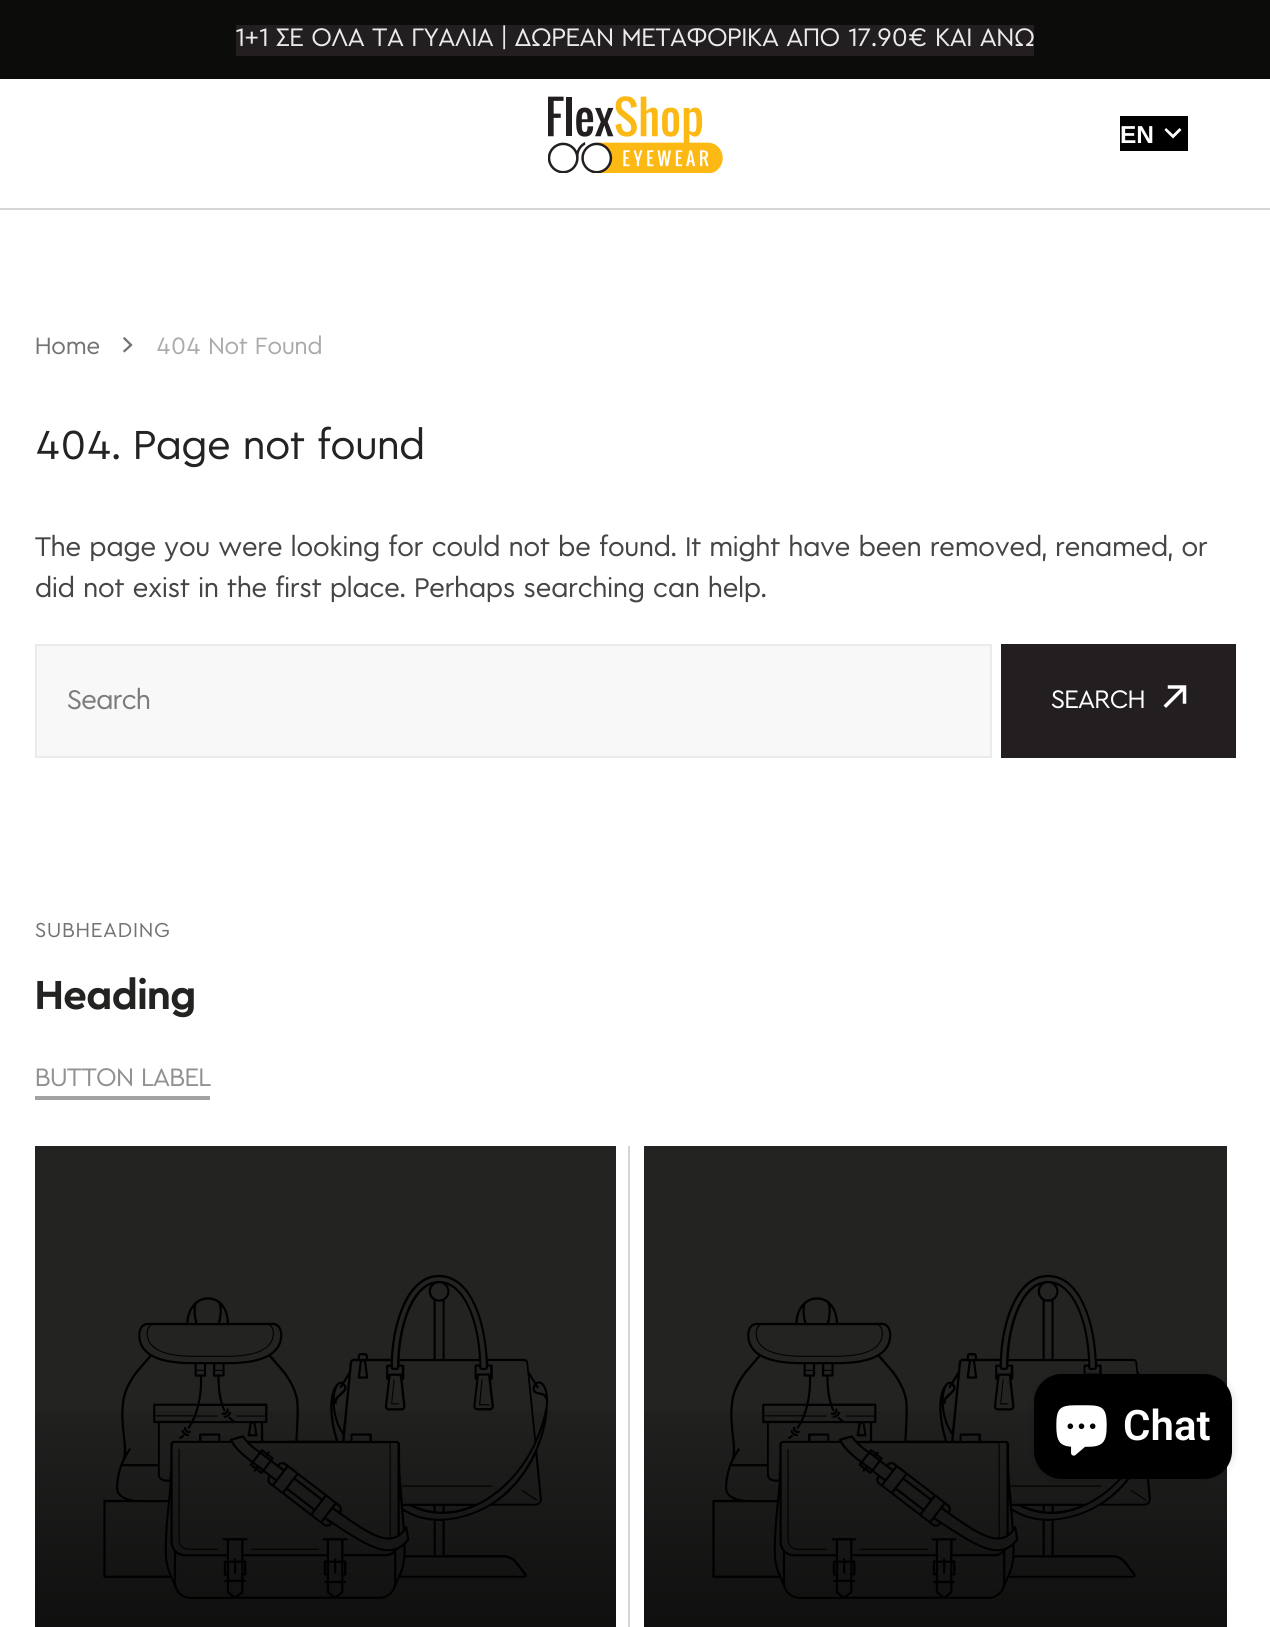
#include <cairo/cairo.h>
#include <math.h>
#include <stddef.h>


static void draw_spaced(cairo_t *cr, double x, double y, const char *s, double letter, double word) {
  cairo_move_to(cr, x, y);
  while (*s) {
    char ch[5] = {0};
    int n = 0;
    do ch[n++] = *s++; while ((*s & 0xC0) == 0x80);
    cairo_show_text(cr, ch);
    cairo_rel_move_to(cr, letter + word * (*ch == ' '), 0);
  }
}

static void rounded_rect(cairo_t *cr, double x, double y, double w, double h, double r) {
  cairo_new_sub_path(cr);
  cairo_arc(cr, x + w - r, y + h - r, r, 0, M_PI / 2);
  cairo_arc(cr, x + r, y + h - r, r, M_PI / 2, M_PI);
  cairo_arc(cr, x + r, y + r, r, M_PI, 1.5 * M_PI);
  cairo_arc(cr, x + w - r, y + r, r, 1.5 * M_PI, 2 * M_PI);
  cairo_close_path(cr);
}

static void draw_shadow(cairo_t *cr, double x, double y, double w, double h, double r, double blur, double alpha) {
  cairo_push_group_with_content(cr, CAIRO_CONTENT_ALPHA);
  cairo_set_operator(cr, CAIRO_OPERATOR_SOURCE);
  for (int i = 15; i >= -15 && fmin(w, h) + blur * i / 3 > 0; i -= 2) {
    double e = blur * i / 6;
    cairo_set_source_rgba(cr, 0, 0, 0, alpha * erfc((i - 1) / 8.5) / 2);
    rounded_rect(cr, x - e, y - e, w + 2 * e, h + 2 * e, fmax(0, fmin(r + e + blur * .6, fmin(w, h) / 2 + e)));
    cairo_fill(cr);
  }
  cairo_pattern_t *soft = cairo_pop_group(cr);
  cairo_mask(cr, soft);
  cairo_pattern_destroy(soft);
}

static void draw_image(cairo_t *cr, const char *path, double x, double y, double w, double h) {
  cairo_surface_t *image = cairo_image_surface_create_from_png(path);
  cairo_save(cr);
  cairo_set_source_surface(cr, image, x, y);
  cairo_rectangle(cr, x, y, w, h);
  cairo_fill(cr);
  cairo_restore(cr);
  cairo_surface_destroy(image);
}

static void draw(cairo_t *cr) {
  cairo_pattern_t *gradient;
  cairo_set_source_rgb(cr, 1, 1, 1);
  cairo_paint(cr);
  cairo_set_source_rgb(cr, 12 / 255.0, 12 / 255.0, 11 / 255.0);
  cairo_rectangle(cr, 0, 0, 1270, 79);
  cairo_fill(cr);
  cairo_set_source_rgb(cr, 35 / 255.0, 31 / 255.0, 32 / 255.0);
  cairo_rectangle(cr, 236, 25, 798, 31);
  cairo_fill(cr);
  cairo_set_source_rgb(cr, 213 / 255.0, 213 / 255.0, 213 / 255.0);
  cairo_rectangle(cr, 0, 208, 1270, 2);
  cairo_fill(cr);
  draw_image(cr, "images/1.png", 548, 96, 175, 77);
  cairo_set_source_rgb(cr, 0, 0, 0);
  cairo_rectangle(cr, 1120, 116, 68, 35);
  cairo_fill(cr);
  cairo_set_source_rgb(cr, 1, 1, 1);
  cairo_new_path(cr);
  cairo_move_to(cr, 1173, 134.5);
  cairo_line_to(cr, 1179.5, 128);
  cairo_line_to(cr, 1181.5, 130);
  cairo_line_to(cr, 1173, 138.5);
  cairo_line_to(cr, 1164.5, 130);
  cairo_line_to(cr, 1166, 128);
  cairo_close_path(cr);
  cairo_fill(cr);
  cairo_new_path(cr);
  cairo_move_to(cr, 124.5, 338.5);
  cairo_line_to(cr, 131, 345);
  cairo_line_to(cr, 124.5, 351);
  cairo_set_source_rgb(cr, 115 / 255.0, 115 / 255.0, 114 / 255.0);
  cairo_set_line_width(cr, 2.3);
  cairo_set_line_cap(cr, CAIRO_LINE_CAP_SQUARE);
  cairo_stroke(cr);
  cairo_set_source_rgb(cr, 248 / 255.0, 248 / 255.0, 248 / 255.0);
  cairo_rectangle(cr, 36, 645, 955, 112);
  cairo_fill_preserve(cr);
  cairo_set_source_rgb(cr, 235 / 255.0, 235 / 255.0, 235 / 255.0);
  cairo_set_line_width(cr, 2);
  cairo_set_line_cap(cr, CAIRO_LINE_CAP_BUTT);
  cairo_stroke(cr);
  cairo_set_source_rgb(cr, 35 / 255.0, 31 / 255.0, 32 / 255.0);
  cairo_rectangle(cr, 1001, 644, 235, 114);
  cairo_fill(cr);
  cairo_new_path(cr);
  cairo_move_to(cr, 1166, 705.5);
  cairo_line_to(cr, 1183, 688.5);
  cairo_move_to(cr, 1169.5, 687);
  cairo_line_to(cr, 1184.5, 687);
  cairo_line_to(cr, 1184.5, 702);
  cairo_set_source_rgb(cr, 1, 1, 1);
  cairo_set_line_width(cr, 3.5);
  cairo_set_line_cap(cr, CAIRO_LINE_CAP_SQUARE);
  cairo_stroke(cr);
  cairo_set_source_rgb(cr, 162 / 255.0, 162 / 255.0, 162 / 255.0);
  cairo_rectangle(cr, 35, 1096, 175, 4);
  cairo_fill(cr);
  cairo_set_source_rgb(cr, 35 / 255.0, 35 / 255.0, 34 / 255.0);
  cairo_rectangle(cr, 35, 1146, 581, 481);
  cairo_fill(cr);
  draw_image(cr, "images/2.png", 103, 1274, 446, 325);
  gradient = cairo_pattern_create_linear(326, 1379, 326, 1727);
  cairo_pattern_add_color_stop_rgba(gradient, 0, 0, 0, 0, 0);
  cairo_pattern_add_color_stop_rgba(gradient, 1, 0, 0, 0, 0.79);
  cairo_set_source(cr, gradient);
  cairo_pattern_destroy(gradient);
  cairo_rectangle(cr, 35, 1411, 581, 216);
  cairo_fill(cr);
  cairo_set_source_rgb(cr, 213 / 255.0, 213 / 255.0, 213 / 255.0);
  cairo_rectangle(cr, 628, 1146, 2, 481);
  cairo_fill(cr);
  cairo_set_source_rgb(cr, 35 / 255.0, 35 / 255.0, 34 / 255.0);
  cairo_rectangle(cr, 644, 1146, 583, 481);
  cairo_fill(cr);
  draw_image(cr, "images/3.png", 712, 1274, 439, 325);
  gradient = cairo_pattern_create_linear(935, 1379, 935, 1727);
  cairo_pattern_add_color_stop_rgba(gradient, 0, 0, 0, 0, 0);
  cairo_pattern_add_color_stop_rgba(gradient, 1, 0, 0, 0, 0.79);
  cairo_set_source(cr, gradient);
  cairo_pattern_destroy(gradient);
  cairo_rectangle(cr, 644, 1411, 583, 216);
  cairo_fill(cr);
  cairo_set_source_rgb(cr, 0, 0, 0);
  draw_shadow(cr, 1034, 1374, 198, 105, 28, 4.5, 0.15);
  cairo_set_source_rgb(cr, 0, 0, 0);
  rounded_rect(cr, 1034, 1374, 198, 105, 28);
  cairo_fill(cr);
  draw_image(cr, "images/4.png", 1056, 1405, 51, 51);
  cairo_select_font_face(cr, "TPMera", CAIRO_FONT_SLANT_NORMAL, CAIRO_FONT_WEIGHT_NORMAL);
  cairo_set_font_size(cr, 26.25);
  cairo_set_source_rgb(cr, 235 / 255.0, 235 / 255.0, 235 / 255.0);
  cairo_move_to(cr, 235, 46);
  cairo_show_text(cr, "1+1 ΣΕ ΟΛΑ ΤΑ ΓΥΑΛΙΑ | ΔΩΡΕΑΝ ΜΕΤΑΦΟΡΙΚΑ ΑΠΟ 17.90€ ΚΑΙ ΑΝΩ");
  cairo_select_font_face(cr, "Liberation Sans", CAIRO_FONT_SLANT_NORMAL, CAIRO_FONT_WEIGHT_BOLD);
  cairo_set_font_size(cr, 24.5);
  cairo_set_source_rgb(cr, 1, 1, 1);
  cairo_move_to(cr, 1120, 143);
  cairo_show_text(cr, "EN");
  cairo_select_font_face(cr, "TPMera", CAIRO_FONT_SLANT_NORMAL, CAIRO_FONT_WEIGHT_NORMAL);
  cairo_set_source_rgb(cr, 115 / 255.0, 115 / 255.0, 114 / 255.0);
  cairo_move_to(cr, 35, 354);
  cairo_show_text(cr, "Home");
  cairo_set_source_rgb(cr, 171 / 255.0, 171 / 255.0, 170 / 255.0);
  cairo_move_to(cr, 156, 354);
  cairo_show_text(cr, "404 Not Found");
  cairo_set_font_size(cr, 42);
  cairo_set_source_rgb(cr, 35 / 255.0, 35 / 255.0, 34 / 255.0);
  cairo_move_to(cr, 35, 459);
  cairo_show_text(cr, "404. Page not found");
  cairo_set_font_size(cr, 28);
  cairo_set_source_rgb(cr, 69 / 255.0, 69 / 255.0, 68 / 255.0);
  cairo_move_to(cr, 35, 556);
  cairo_show_text(cr, "The page you were looking for could not be found. It might have been removed, renamed, or");
  cairo_move_to(cr, 35, 597);
  cairo_show_text(cr, "did not exist in the first place. Perhaps searching can help.");
  cairo_set_source_rgb(cr, 124 / 255.0, 124 / 255.0, 124 / 255.0);
  draw_spaced(cr, 67, 709, "Search", -0.5, 0);
  cairo_set_font_size(cr, 26.25);
  cairo_set_source_rgb(cr, 1, 1, 1);
  draw_spaced(cr, 1051, 708, "SEARCH", -0.25, 0);
  cairo_set_font_size(cr, 21);
  cairo_set_source_rgb(cr, 115 / 255.0, 115 / 255.0, 114 / 255.0);
  draw_spaced(cr, 35, 937, "SUBHEADING", 1.25, 0);
  cairo_select_font_face(cr, "TPMera", CAIRO_FONT_SLANT_NORMAL, CAIRO_FONT_WEIGHT_BOLD);
  cairo_set_font_size(cr, 42);
  cairo_set_source_rgb(cr, 35 / 255.0, 35 / 255.0, 34 / 255.0);
  cairo_move_to(cr, 35, 1009);
  cairo_show_text(cr, "Heading");
  cairo_select_font_face(cr, "TPMera", CAIRO_FONT_SLANT_NORMAL, CAIRO_FONT_WEIGHT_NORMAL);
  cairo_set_font_size(cr, 26.25);
  cairo_set_source_rgb(cr, 145 / 255.0, 145 / 255.0, 145 / 255.0);
  draw_spaced(cr, 35, 1086, "BUTTON LABEL", -0.25, 0);
  cairo_select_font_face(cr, "Roboto SemiBold", CAIRO_FONT_SLANT_NORMAL, CAIRO_FONT_WEIGHT_NORMAL);
  cairo_set_font_size(cr, 42);
  cairo_set_source_rgb(cr, 1, 1, 1);
  cairo_move_to(cr, 1123, 1440);
  cairo_show_text(cr, "Chat");
}

int main(void) {
  cairo_surface_t *surface = cairo_image_surface_create(CAIRO_FORMAT_RGB24, 1270, 1627);
  cairo_t *cr = cairo_create(surface);
  cairo_font_options_t *options = cairo_font_options_create();
  cairo_font_options_set_hint_metrics(options, CAIRO_HINT_METRICS_OFF);
  cairo_font_options_set_hint_style(options, CAIRO_HINT_STYLE_NONE);
  cairo_set_font_options(cr, options);
  cairo_set_miter_limit(cr, 4);
  draw(cr);
  cairo_surface_write_to_png(surface, "out.png");
  cairo_font_options_destroy(options);
  cairo_destroy(cr);
  cairo_surface_destroy(surface);
  return 0;
}
